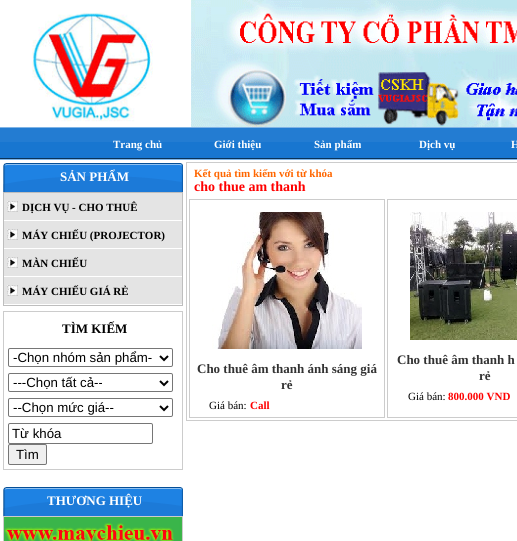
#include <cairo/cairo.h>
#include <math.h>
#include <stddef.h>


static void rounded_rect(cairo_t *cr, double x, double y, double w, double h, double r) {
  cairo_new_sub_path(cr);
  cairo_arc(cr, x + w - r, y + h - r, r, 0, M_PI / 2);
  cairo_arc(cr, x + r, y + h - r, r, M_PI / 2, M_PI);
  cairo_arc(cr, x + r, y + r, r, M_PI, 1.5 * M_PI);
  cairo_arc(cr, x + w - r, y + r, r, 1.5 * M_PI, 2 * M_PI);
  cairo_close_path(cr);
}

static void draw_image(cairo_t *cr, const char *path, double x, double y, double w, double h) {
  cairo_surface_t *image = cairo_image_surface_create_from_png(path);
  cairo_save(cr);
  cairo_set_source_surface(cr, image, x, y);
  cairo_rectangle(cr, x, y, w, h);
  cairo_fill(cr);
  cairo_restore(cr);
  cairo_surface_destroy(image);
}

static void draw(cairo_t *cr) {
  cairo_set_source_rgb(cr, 1, 1, 1);
  cairo_paint(cr);
  draw_image(cr, "images/1.png", 0, 0, 517, 127);
  draw_image(cr, "images/2.png", 0, 127, 517, 33);
  draw_image(cr, "images/3.png", 3, 163, 180, 29);
  cairo_rectangle(cr, 3.5, 192.5, 179, 113);
  cairo_set_source_rgb(cr, 190 / 255.0, 190 / 255.0, 190 / 255.0);
  cairo_set_line_width(cr, 1);
  cairo_stroke(cr);
  cairo_set_source_rgb(cr, 228 / 255.0, 228 / 255.0, 228 / 255.0);
  cairo_rectangle(cr, 4, 193, 178, 27);
  cairo_fill(cr);
  draw_image(cr, "images/4.png", 7, 201, 11, 11);
  cairo_rectangle(cr, 4, 221, 178, 27);
  cairo_fill(cr);
  draw_image(cr, "images/4.png", 7, 229, 11, 11);
  cairo_rectangle(cr, 4, 249, 178, 27);
  cairo_fill(cr);
  draw_image(cr, "images/4.png", 7, 257, 11, 11);
  cairo_rectangle(cr, 4, 277, 178, 27);
  cairo_fill(cr);
  draw_image(cr, "images/4.png", 7, 285, 11, 11);
  cairo_rectangle(cr, 3.5, 311.5, 179, 158);
  cairo_set_source_rgb(cr, 204 / 255.0, 204 / 255.0, 204 / 255.0);
  cairo_stroke(cr);
  rounded_rect(cr, 8.5, 348.5, 164, 18, 1.5);
  cairo_set_source_rgb(cr, 118 / 255.0, 118 / 255.0, 118 / 255.0);
  cairo_stroke(cr);
  cairo_new_path(cr);
  cairo_move_to(cr, 160, 356);
  cairo_line_to(cr, 164, 360);
  cairo_line_to(cr, 168, 356);
  cairo_set_source_rgb(cr, 0, 0, 0);
  cairo_set_line_width(cr, 2);
  cairo_stroke(cr);
  rounded_rect(cr, 8.5, 373.5, 164, 18, 1.5);
  cairo_set_source_rgb(cr, 118 / 255.0, 118 / 255.0, 118 / 255.0);
  cairo_set_line_width(cr, 1);
  cairo_stroke(cr);
  cairo_new_path(cr);
  cairo_move_to(cr, 160, 381);
  cairo_line_to(cr, 164, 385);
  cairo_line_to(cr, 168, 381);
  cairo_set_source_rgb(cr, 0, 0, 0);
  cairo_set_line_width(cr, 2);
  cairo_stroke(cr);
  rounded_rect(cr, 8.5, 398.5, 164, 18, 1.5);
  cairo_set_source_rgb(cr, 118 / 255.0, 118 / 255.0, 118 / 255.0);
  cairo_set_line_width(cr, 1);
  cairo_stroke(cr);
  cairo_new_path(cr);
  cairo_move_to(cr, 160, 406);
  cairo_line_to(cr, 164, 410);
  cairo_line_to(cr, 168, 406);
  cairo_set_source_rgb(cr, 0, 0, 0);
  cairo_set_line_width(cr, 2);
  cairo_stroke(cr);
  rounded_rect(cr, 8.5, 423.5, 144, 20, 1.5);
  cairo_set_source_rgb(cr, 118 / 255.0, 118 / 255.0, 118 / 255.0);
  cairo_set_line_width(cr, 1);
  cairo_stroke(cr);
  cairo_set_source_rgb(cr, 239 / 255.0, 239 / 255.0, 239 / 255.0);
  rounded_rect(cr, 8.5, 444.5, 38, 20, 1.5);
  cairo_fill_preserve(cr);
  cairo_set_source_rgb(cr, 118 / 255.0, 118 / 255.0, 118 / 255.0);
  cairo_stroke(cr);
  draw_image(cr, "images/3.png", 3, 487, 180, 29);
  cairo_rectangle(cr, 3.5, 516.5, 179, 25);
  cairo_set_source_rgb(cr, 204 / 255.0, 204 / 255.0, 204 / 255.0);
  cairo_stroke(cr);
  draw_image(cr, "images/5.png", 4, 517, 178, 24);
  cairo_rectangle(cr, 186.5, 162.5, 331, 258);
  cairo_stroke(cr);
  cairo_rectangle(cr, 189.5, 199.5, 195, 218);
  cairo_stroke(cr);
  draw_image(cr, "images/6.png", 212, 212, 150, 137);
  cairo_rectangle(cr, 387.5, 199.5, 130, 218);
  cairo_stroke(cr);
  draw_image(cr, "images/7.png", 410, 212, 107, 128);
  cairo_select_font_face(cr, "Liberation Serif", CAIRO_FONT_SLANT_NORMAL, CAIRO_FONT_WEIGHT_BOLD);
  cairo_set_font_size(cr, 11);
  cairo_set_source_rgb(cr, 1, 1, 1);
  cairo_move_to(cr, 113, 148);
  cairo_show_text(cr, "Trang chủ");
  cairo_move_to(cr, 214, 148);
  cairo_show_text(cr, "Giới thiệu");
  cairo_move_to(cr, 314, 148);
  cairo_show_text(cr, "Sản phẩm");
  cairo_move_to(cr, 419, 148);
  cairo_show_text(cr, "Dịch vụ");
  cairo_move_to(cr, 511, 148);
  cairo_show_text(cr, "H");
  cairo_set_font_size(cr, 13);
  cairo_move_to(cr, 60, 181);
  cairo_show_text(cr, "SẢN PHẨM");
  cairo_set_font_size(cr, 11);
  cairo_set_source_rgb(cr, 0, 0, 0);
  cairo_move_to(cr, 22, 211);
  cairo_show_text(cr, "DỊCH VỤ - CHO THUÊ");
  cairo_move_to(cr, 22, 239);
  cairo_show_text(cr, "MÁY CHIẾU (PROJECTOR)");
  cairo_move_to(cr, 22, 267);
  cairo_show_text(cr, "MÀN CHIẾU");
  cairo_move_to(cr, 22, 295);
  cairo_show_text(cr, "MÁY CHIẾU GIÁ RẺ");
  cairo_set_font_size(cr, 13);
  cairo_move_to(cr, 62, 333);
  cairo_show_text(cr, "TÌM KIẾM");
  cairo_select_font_face(cr, "Liberation Sans", CAIRO_FONT_SLANT_NORMAL, CAIRO_FONT_WEIGHT_NORMAL);
  cairo_set_font_size(cr, 13.25);
  cairo_move_to(cr, 13, 362);
  cairo_show_text(cr, "-Chọn nhóm sản phẩm-");
  cairo_move_to(cr, 13, 387);
  cairo_show_text(cr, "---Chọn tất cả--");
  cairo_move_to(cr, 13, 412);
  cairo_show_text(cr, "--Chọn mức giá--");
  cairo_move_to(cr, 12, 438);
  cairo_show_text(cr, "Từ khóa");
  cairo_move_to(cr, 16, 459);
  cairo_show_text(cr, "Tìm");
  cairo_select_font_face(cr, "Liberation Serif", CAIRO_FONT_SLANT_NORMAL, CAIRO_FONT_WEIGHT_BOLD);
  cairo_set_font_size(cr, 13);
  cairo_set_source_rgb(cr, 1, 1, 1);
  cairo_move_to(cr, 47, 505);
  cairo_show_text(cr, "THƯƠNG HIỆU");
  cairo_set_font_size(cr, 11);
  cairo_set_source_rgb(cr, 1, 102 / 255.0, 0);
  cairo_move_to(cr, 194, 177);
  cairo_show_text(cr, "Kết quả tìm kiếm với từ khóa");
  cairo_set_font_size(cr, 14);
  cairo_set_source_rgb(cr, 1, 0, 0);
  cairo_move_to(cr, 194, 191);
  cairo_show_text(cr, "cho thue am thanh");
  cairo_set_font_size(cr, 13);
  cairo_set_source_rgb(cr, 51 / 255.0, 51 / 255.0, 51 / 255.0);
  cairo_move_to(cr, 197, 373);
  cairo_show_text(cr, "Cho thuê âm thanh ánh sáng giá");
  cairo_move_to(cr, 281, 389);
  cairo_show_text(cr, "rẻ");
  cairo_select_font_face(cr, "Liberation Serif", CAIRO_FONT_SLANT_NORMAL, CAIRO_FONT_WEIGHT_NORMAL);
  cairo_set_font_size(cr, 11);
  cairo_set_source_rgb(cr, 0, 0, 0);
  cairo_move_to(cr, 209, 409);
  cairo_show_text(cr, "Giá bán:");
  cairo_select_font_face(cr, "Liberation Serif", CAIRO_FONT_SLANT_NORMAL, CAIRO_FONT_WEIGHT_BOLD);
  cairo_set_source_rgb(cr, 1, 0, 0);
  cairo_move_to(cr, 250, 409);
  cairo_show_text(cr, "Call");
  cairo_set_font_size(cr, 13);
  cairo_set_source_rgb(cr, 51 / 255.0, 51 / 255.0, 51 / 255.0);
  cairo_move_to(cr, 397, 364);
  cairo_show_text(cr, "Cho thuê âm thanh h");
  cairo_move_to(cr, 479, 380);
  cairo_show_text(cr, "rẻ");
  cairo_select_font_face(cr, "Liberation Serif", CAIRO_FONT_SLANT_NORMAL, CAIRO_FONT_WEIGHT_NORMAL);
  cairo_set_font_size(cr, 11);
  cairo_set_source_rgb(cr, 0, 0, 0);
  cairo_move_to(cr, 408, 400);
  cairo_show_text(cr, "Giá bán:");
  cairo_select_font_face(cr, "Liberation Serif", CAIRO_FONT_SLANT_NORMAL, CAIRO_FONT_WEIGHT_BOLD);
  cairo_set_source_rgb(cr, 1, 0, 0);
  cairo_move_to(cr, 448, 400);
  cairo_show_text(cr, "800.000 VND");
}

int main(void) {
  cairo_surface_t *surface = cairo_image_surface_create(CAIRO_FORMAT_RGB24, 517, 541);
  cairo_t *cr = cairo_create(surface);
  cairo_font_options_t *options = cairo_font_options_create();
  cairo_font_options_set_hint_metrics(options, CAIRO_HINT_METRICS_OFF);
  cairo_font_options_set_hint_style(options, CAIRO_HINT_STYLE_NONE);
  cairo_set_font_options(cr, options);
  cairo_set_miter_limit(cr, 4);
  draw(cr);
  cairo_surface_write_to_png(surface, "out.png");
  cairo_font_options_destroy(options);
  cairo_destroy(cr);
  cairo_surface_destroy(surface);
  return 0;
}
